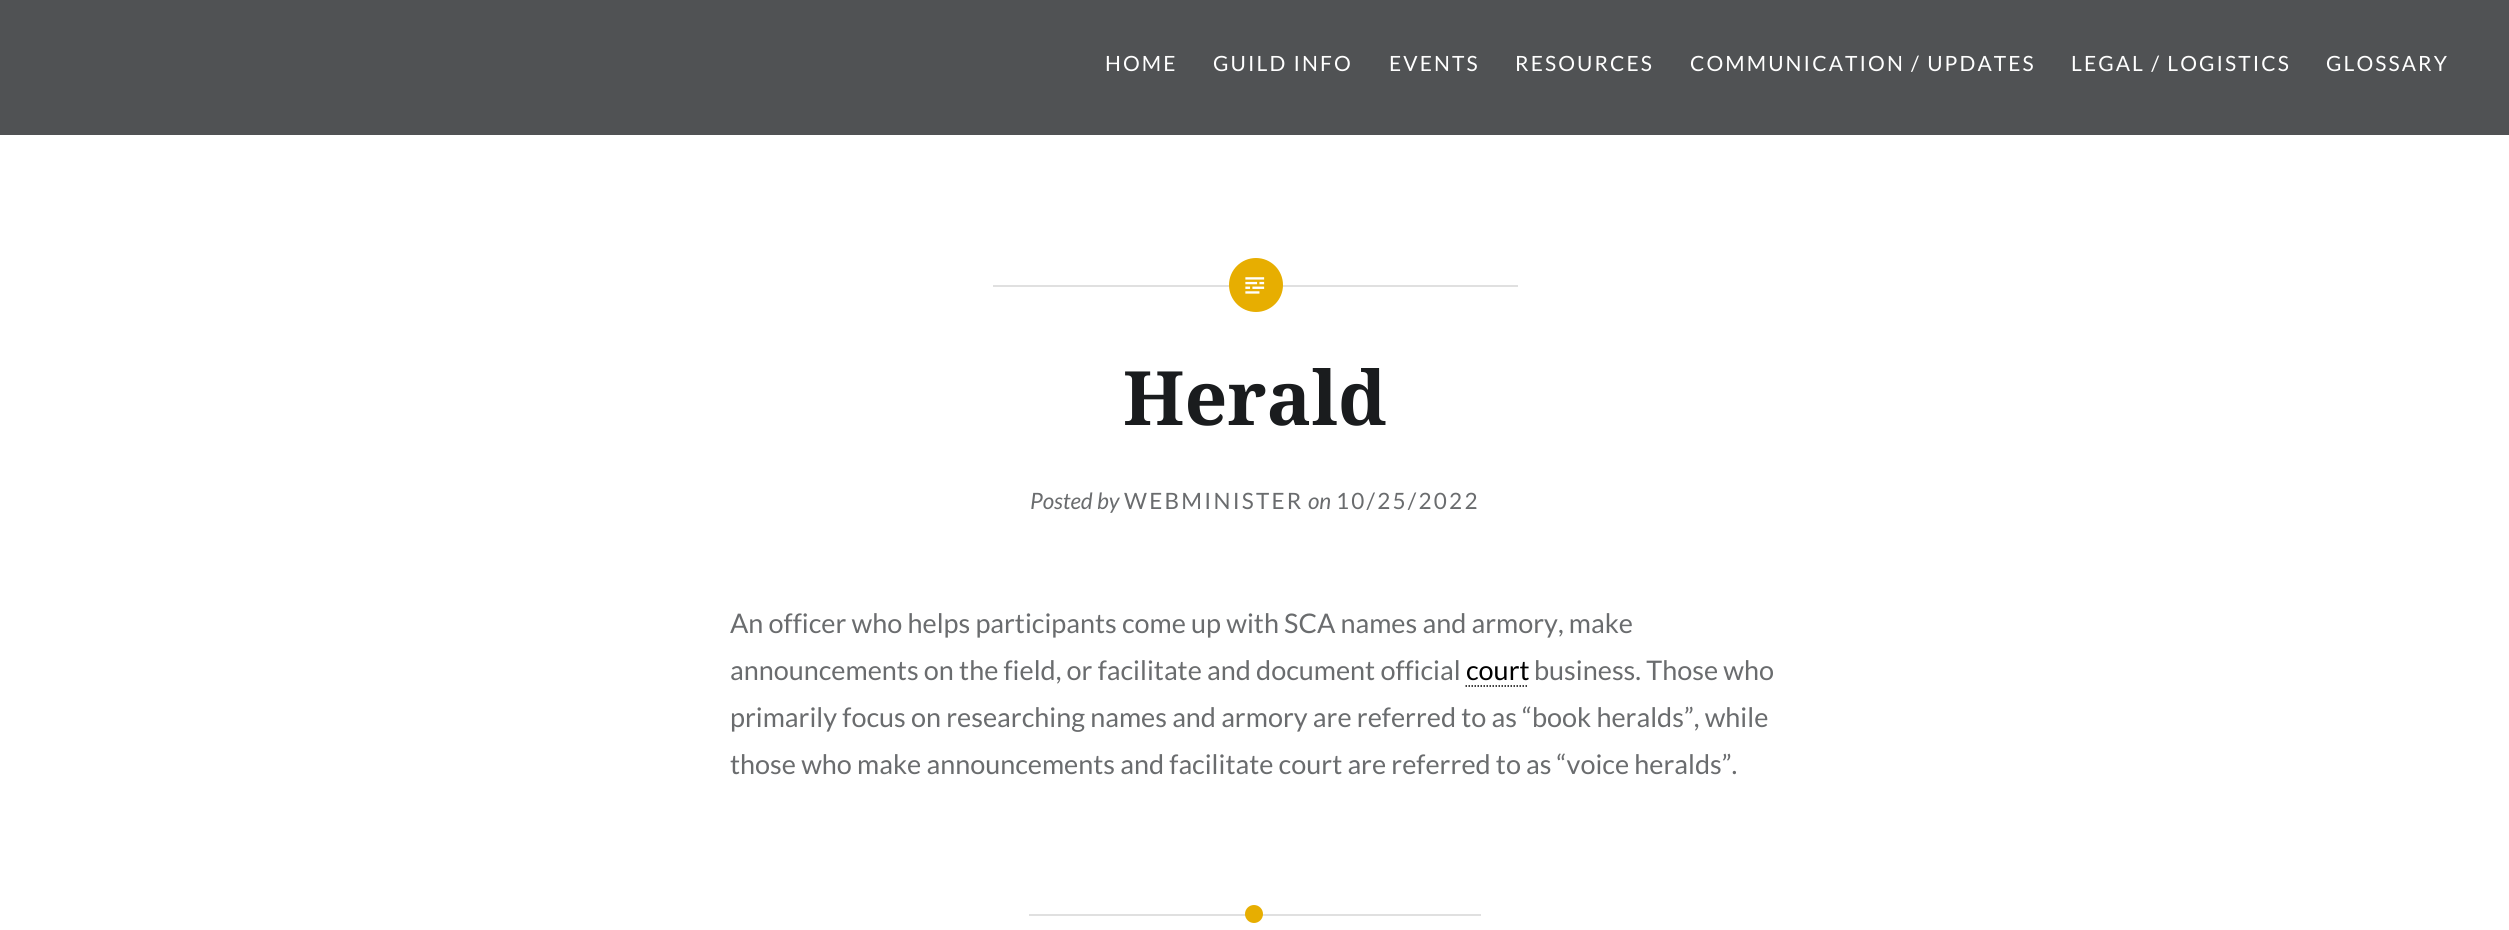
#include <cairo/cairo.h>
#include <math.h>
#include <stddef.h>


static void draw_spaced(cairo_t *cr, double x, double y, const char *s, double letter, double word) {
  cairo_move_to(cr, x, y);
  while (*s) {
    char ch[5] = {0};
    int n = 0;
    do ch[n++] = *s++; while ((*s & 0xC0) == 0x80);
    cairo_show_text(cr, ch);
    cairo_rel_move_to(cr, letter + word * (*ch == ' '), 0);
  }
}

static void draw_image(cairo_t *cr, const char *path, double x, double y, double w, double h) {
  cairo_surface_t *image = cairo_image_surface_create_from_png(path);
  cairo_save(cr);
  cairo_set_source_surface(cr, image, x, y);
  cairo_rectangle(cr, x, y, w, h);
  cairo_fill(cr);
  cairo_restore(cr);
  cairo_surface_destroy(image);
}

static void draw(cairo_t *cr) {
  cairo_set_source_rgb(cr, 1, 1, 1);
  cairo_paint(cr);
  cairo_set_source_rgb(cr, 80 / 255.0, 82 / 255.0, 84 / 255.0);
  cairo_rectangle(cr, 0, 0, 2509, 135);
  cairo_fill(cr);
  cairo_set_source_rgb(cr, 224 / 255.0, 224 / 255.0, 224 / 255.0);
  cairo_rectangle(cr, 993, 285, 525, 2);
  cairo_fill(cr);
  cairo_set_source_rgb(cr, 231 / 255.0, 174 / 255.0, 1 / 255.0);
  cairo_arc(cr, 1256, 285, 27, 0, 2 * M_PI);
  cairo_fill(cr);
  draw_image(cr, "images/1.png", 1245, 277, 20, 17);
  cairo_new_path(cr);
  cairo_move_to(cr, 1465.5, 686);
  cairo_line_to(cr, 1528.5, 686);
  cairo_set_source_rgb(cr, 0, 0, 0);
  cairo_set_line_width(cr, 1.5);
  cairo_set_dash(cr, (double[]){1.5, 1.5}, 2, 0);
  cairo_stroke(cr);
  cairo_set_source_rgb(cr, 224 / 255.0, 224 / 255.0, 224 / 255.0);
  cairo_rectangle(cr, 1029, 914, 452, 2);
  cairo_fill(cr);
  cairo_set_source_rgb(cr, 231 / 255.0, 174 / 255.0, 1 / 255.0);
  cairo_arc(cr, 1254, 914, 9, 0, 2 * M_PI);
  cairo_fill(cr);
  cairo_select_font_face(cr, "Lato", CAIRO_FONT_SLANT_NORMAL, CAIRO_FONT_WEIGHT_NORMAL);
  cairo_set_font_size(cr, 21);
  cairo_set_source_rgb(cr, 1, 1, 1);
  draw_spaced(cr, 1105, 71, "HOME", 2.1, 0);
  draw_spaced(cr, 1213, 71, "GUILD INFO", 2.1, 0);
  draw_spaced(cr, 1389, 71, "EVENTS", 2.1, 0);
  draw_spaced(cr, 1515, 71, "RESOURCES", 2.1, 0);
  draw_spaced(cr, 1690, 71, "COMMUNICATION / UPDATES", 2.1, 0);
  draw_spaced(cr, 2071, 71, "LEGAL / LOGISTICS", 2.1, 0);
  draw_spaced(cr, 2326, 71, "GLOSSARY", 2.1, 0);
  cairo_select_font_face(cr, "Noto Serif", CAIRO_FONT_SLANT_NORMAL, CAIRO_FONT_WEIGHT_BOLD);
  cairo_set_font_size(cr, 75);
  cairo_set_source_rgb(cr, 26 / 255.0, 28 / 255.0, 30 / 255.0);
  cairo_move_to(cr, 1123, 425);
  cairo_show_text(cr, "Herald");
  cairo_select_font_face(cr, "Lato", CAIRO_FONT_SLANT_ITALIC, CAIRO_FONT_WEIGHT_NORMAL);
  cairo_set_font_size(cr, 22.5);
  cairo_set_source_rgb(cr, 106 / 255.0, 108 / 255.0, 110 / 255.0);
  cairo_move_to(cr, 1030, 509);
  cairo_show_text(cr, "Posted by");
  cairo_select_font_face(cr, "Lato", CAIRO_FONT_SLANT_NORMAL, CAIRO_FONT_WEIGHT_NORMAL);
  draw_spaced(cr, 1124, 509, "WEBMINISTER", 2.25, 0);
  cairo_select_font_face(cr, "Lato", CAIRO_FONT_SLANT_ITALIC, CAIRO_FONT_WEIGHT_NORMAL);
  cairo_move_to(cr, 1308, 509);
  cairo_show_text(cr, "on");
  cairo_select_font_face(cr, "Lato", CAIRO_FONT_SLANT_NORMAL, CAIRO_FONT_WEIGHT_NORMAL);
  draw_spaced(cr, 1336, 509, "10/25/2022", 2.25, 0);
  cairo_set_font_size(cr, 27);
  cairo_move_to(cr, 730, 633);
  cairo_show_text(cr, "An officer who helps participants come up with SCA names and armory, make");
  cairo_move_to(cr, 730, 680);
  cairo_show_text(cr, "announcements on the field, or facilitate and document official");
  cairo_set_source_rgb(cr, 0, 0, 0);
  cairo_move_to(cr, 1466, 680);
  cairo_show_text(cr, "court");
  cairo_set_source_rgb(cr, 106 / 255.0, 108 / 255.0, 110 / 255.0);
  cairo_move_to(cr, 1534, 680);
  cairo_show_text(cr, "business. Those who");
  cairo_move_to(cr, 730, 727);
  cairo_show_text(cr, "primarily focus on researching names and armory are referred to as “book heralds”, while");
  cairo_move_to(cr, 730, 774);
  cairo_show_text(cr, "those who make announcements and facilitate court are referred to as “voice heralds”.");
}

int main(void) {
  cairo_surface_t *surface = cairo_image_surface_create(CAIRO_FORMAT_RGB24, 2509, 930);
  cairo_t *cr = cairo_create(surface);
  cairo_font_options_t *options = cairo_font_options_create();
  cairo_font_options_set_hint_metrics(options, CAIRO_HINT_METRICS_OFF);
  cairo_font_options_set_hint_style(options, CAIRO_HINT_STYLE_NONE);
  cairo_set_font_options(cr, options);
  cairo_set_miter_limit(cr, 4);
  draw(cr);
  cairo_surface_write_to_png(surface, "out.png");
  cairo_font_options_destroy(options);
  cairo_destroy(cr);
  cairo_surface_destroy(surface);
  return 0;
}
